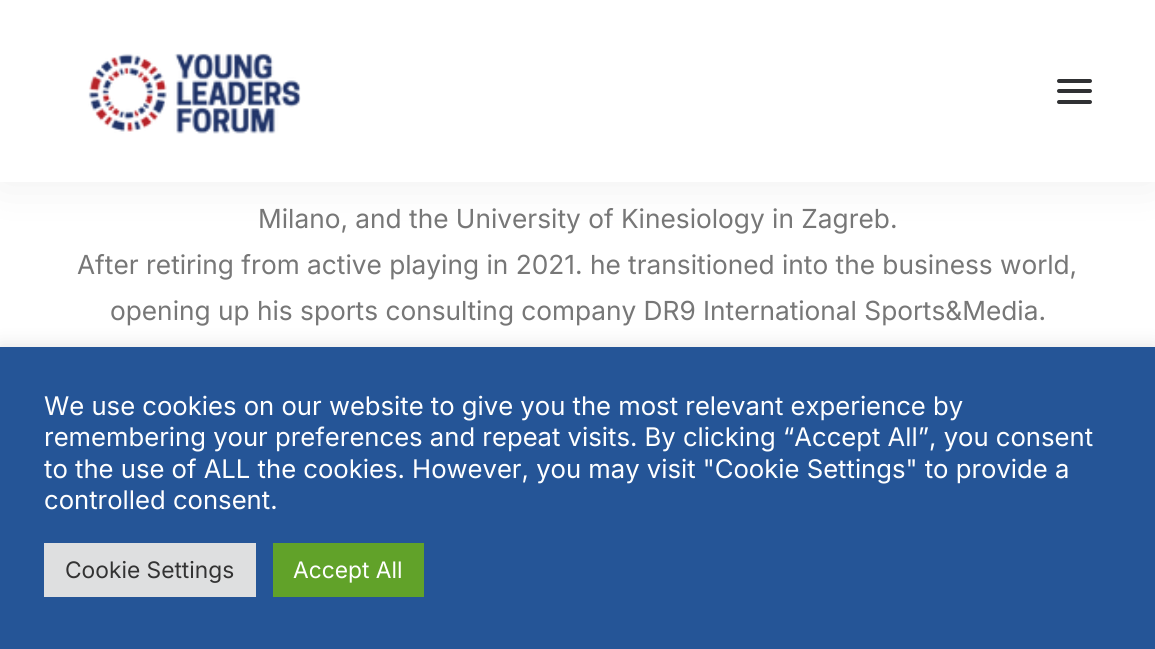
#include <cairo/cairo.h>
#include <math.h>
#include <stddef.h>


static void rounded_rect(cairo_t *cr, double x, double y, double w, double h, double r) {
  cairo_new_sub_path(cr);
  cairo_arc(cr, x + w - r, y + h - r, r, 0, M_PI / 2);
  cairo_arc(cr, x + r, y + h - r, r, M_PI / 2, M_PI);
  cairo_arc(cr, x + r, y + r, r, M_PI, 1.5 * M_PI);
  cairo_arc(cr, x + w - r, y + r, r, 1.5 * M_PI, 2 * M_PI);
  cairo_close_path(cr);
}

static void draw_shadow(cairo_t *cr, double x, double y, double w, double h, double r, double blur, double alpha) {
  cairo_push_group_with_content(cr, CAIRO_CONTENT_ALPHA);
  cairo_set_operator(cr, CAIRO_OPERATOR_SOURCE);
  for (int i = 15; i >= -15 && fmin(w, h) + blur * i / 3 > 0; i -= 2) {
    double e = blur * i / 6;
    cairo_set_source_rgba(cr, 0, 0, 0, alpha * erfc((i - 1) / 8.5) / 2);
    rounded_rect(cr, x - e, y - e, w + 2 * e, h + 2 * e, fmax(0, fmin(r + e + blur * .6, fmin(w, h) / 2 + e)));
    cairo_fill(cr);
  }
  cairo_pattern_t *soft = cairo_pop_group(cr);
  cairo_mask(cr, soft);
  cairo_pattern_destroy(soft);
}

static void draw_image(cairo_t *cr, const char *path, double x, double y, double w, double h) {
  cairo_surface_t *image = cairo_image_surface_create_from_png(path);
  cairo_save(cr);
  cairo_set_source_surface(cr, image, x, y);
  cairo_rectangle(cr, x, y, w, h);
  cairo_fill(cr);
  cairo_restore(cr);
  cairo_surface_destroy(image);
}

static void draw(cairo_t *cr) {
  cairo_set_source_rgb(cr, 1, 1, 1);
  cairo_paint(cr);
  cairo_set_source_rgb(cr, 0, 0, 0);
  draw_shadow(cr, 0, 0, 1155, 182, 0, 26, 0.07);
  cairo_set_source_rgb(cr, 1, 1, 1);
  cairo_rectangle(cr, 0, 0, 1155, 182);
  cairo_fill(cr);
  draw_image(cr, "images/1.png", 88, 53, 213, 81);
  cairo_set_source_rgb(cr, 48 / 255.0, 49 / 255.0, 51 / 255.0);
  rounded_rect(cr, 1057, 89, 35, 4, 2);
  cairo_fill(cr);
  rounded_rect(cr, 1057, 79, 35, 4, 2);
  cairo_fill(cr);
  rounded_rect(cr, 1057, 100, 35, 4, 2);
  cairo_fill(cr);
  cairo_set_source_rgb(cr, 172 / 255.0, 171 / 255.0, 171 / 255.0);
  draw_shadow(cr, 0, 345, 1155, 303, 0, 9, 0.3);
  cairo_set_source_rgb(cr, 37 / 255.0, 85 / 255.0, 151 / 255.0);
  cairo_rectangle(cr, 0, 347, 1155, 302);
  cairo_fill(cr);
  cairo_set_source_rgb(cr, 222 / 255.0, 223 / 255.0, 224 / 255.0);
  cairo_rectangle(cr, 44, 543, 212, 54);
  cairo_fill(cr);
  cairo_set_source_rgb(cr, 97 / 255.0, 162 / 255.0, 41 / 255.0);
  cairo_rectangle(cr, 273, 543, 151, 54);
  cairo_fill(cr);
  cairo_select_font_face(cr, "Inter", CAIRO_FONT_SLANT_NORMAL, CAIRO_FONT_WEIGHT_NORMAL);
  cairo_set_font_size(cr, 26.25);
  cairo_set_source_rgb(cr, 119 / 255.0, 119 / 255.0, 119 / 255.0);
  cairo_move_to(cr, 258, 228);
  cairo_show_text(cr, "Milano, and the University of Kinesiology in Zagreb.");
  cairo_move_to(cr, 77, 274);
  cairo_show_text(cr, "After retiring from active playing in 2021. he transitioned into the business world,");
  cairo_move_to(cr, 110, 320);
  cairo_show_text(cr, "opening up his sports consulting company DR9 International Sports&Media.");
  cairo_set_font_size(cr, 25.65);
  cairo_set_source_rgb(cr, 1, 1, 1);
  cairo_move_to(cr, 44, 415);
  cairo_show_text(cr, "We use cookies on our website to give you the most relevant experience by");
  cairo_move_to(cr, 44, 446);
  cairo_show_text(cr, "remembering your preferences and repeat visits. By clicking “Accept All”, you consent");
  cairo_move_to(cr, 44, 478);
  cairo_show_text(cr, "to the use of ALL the cookies. However, you may visit \"Cookie Settings\" to provide a");
  cairo_move_to(cr, 44, 509);
  cairo_show_text(cr, "controlled consent.");
  cairo_set_font_size(cr, 22.75);
  cairo_set_source_rgb(cr, 51 / 255.0, 51 / 255.0, 51 / 255.0);
  cairo_move_to(cr, 65, 578);
  cairo_show_text(cr, "Cookie Settings");
  cairo_set_source_rgb(cr, 1, 1, 1);
  cairo_move_to(cr, 293, 578);
  cairo_show_text(cr, "Accept All");
}

int main(void) {
  cairo_surface_t *surface = cairo_image_surface_create(CAIRO_FORMAT_RGB24, 1155, 649);
  cairo_t *cr = cairo_create(surface);
  cairo_font_options_t *options = cairo_font_options_create();
  cairo_font_options_set_hint_metrics(options, CAIRO_HINT_METRICS_OFF);
  cairo_font_options_set_hint_style(options, CAIRO_HINT_STYLE_NONE);
  cairo_set_font_options(cr, options);
  cairo_set_miter_limit(cr, 4);
  draw(cr);
  cairo_surface_write_to_png(surface, "out.png");
  cairo_font_options_destroy(options);
  cairo_destroy(cr);
  cairo_surface_destroy(surface);
  return 0;
}
